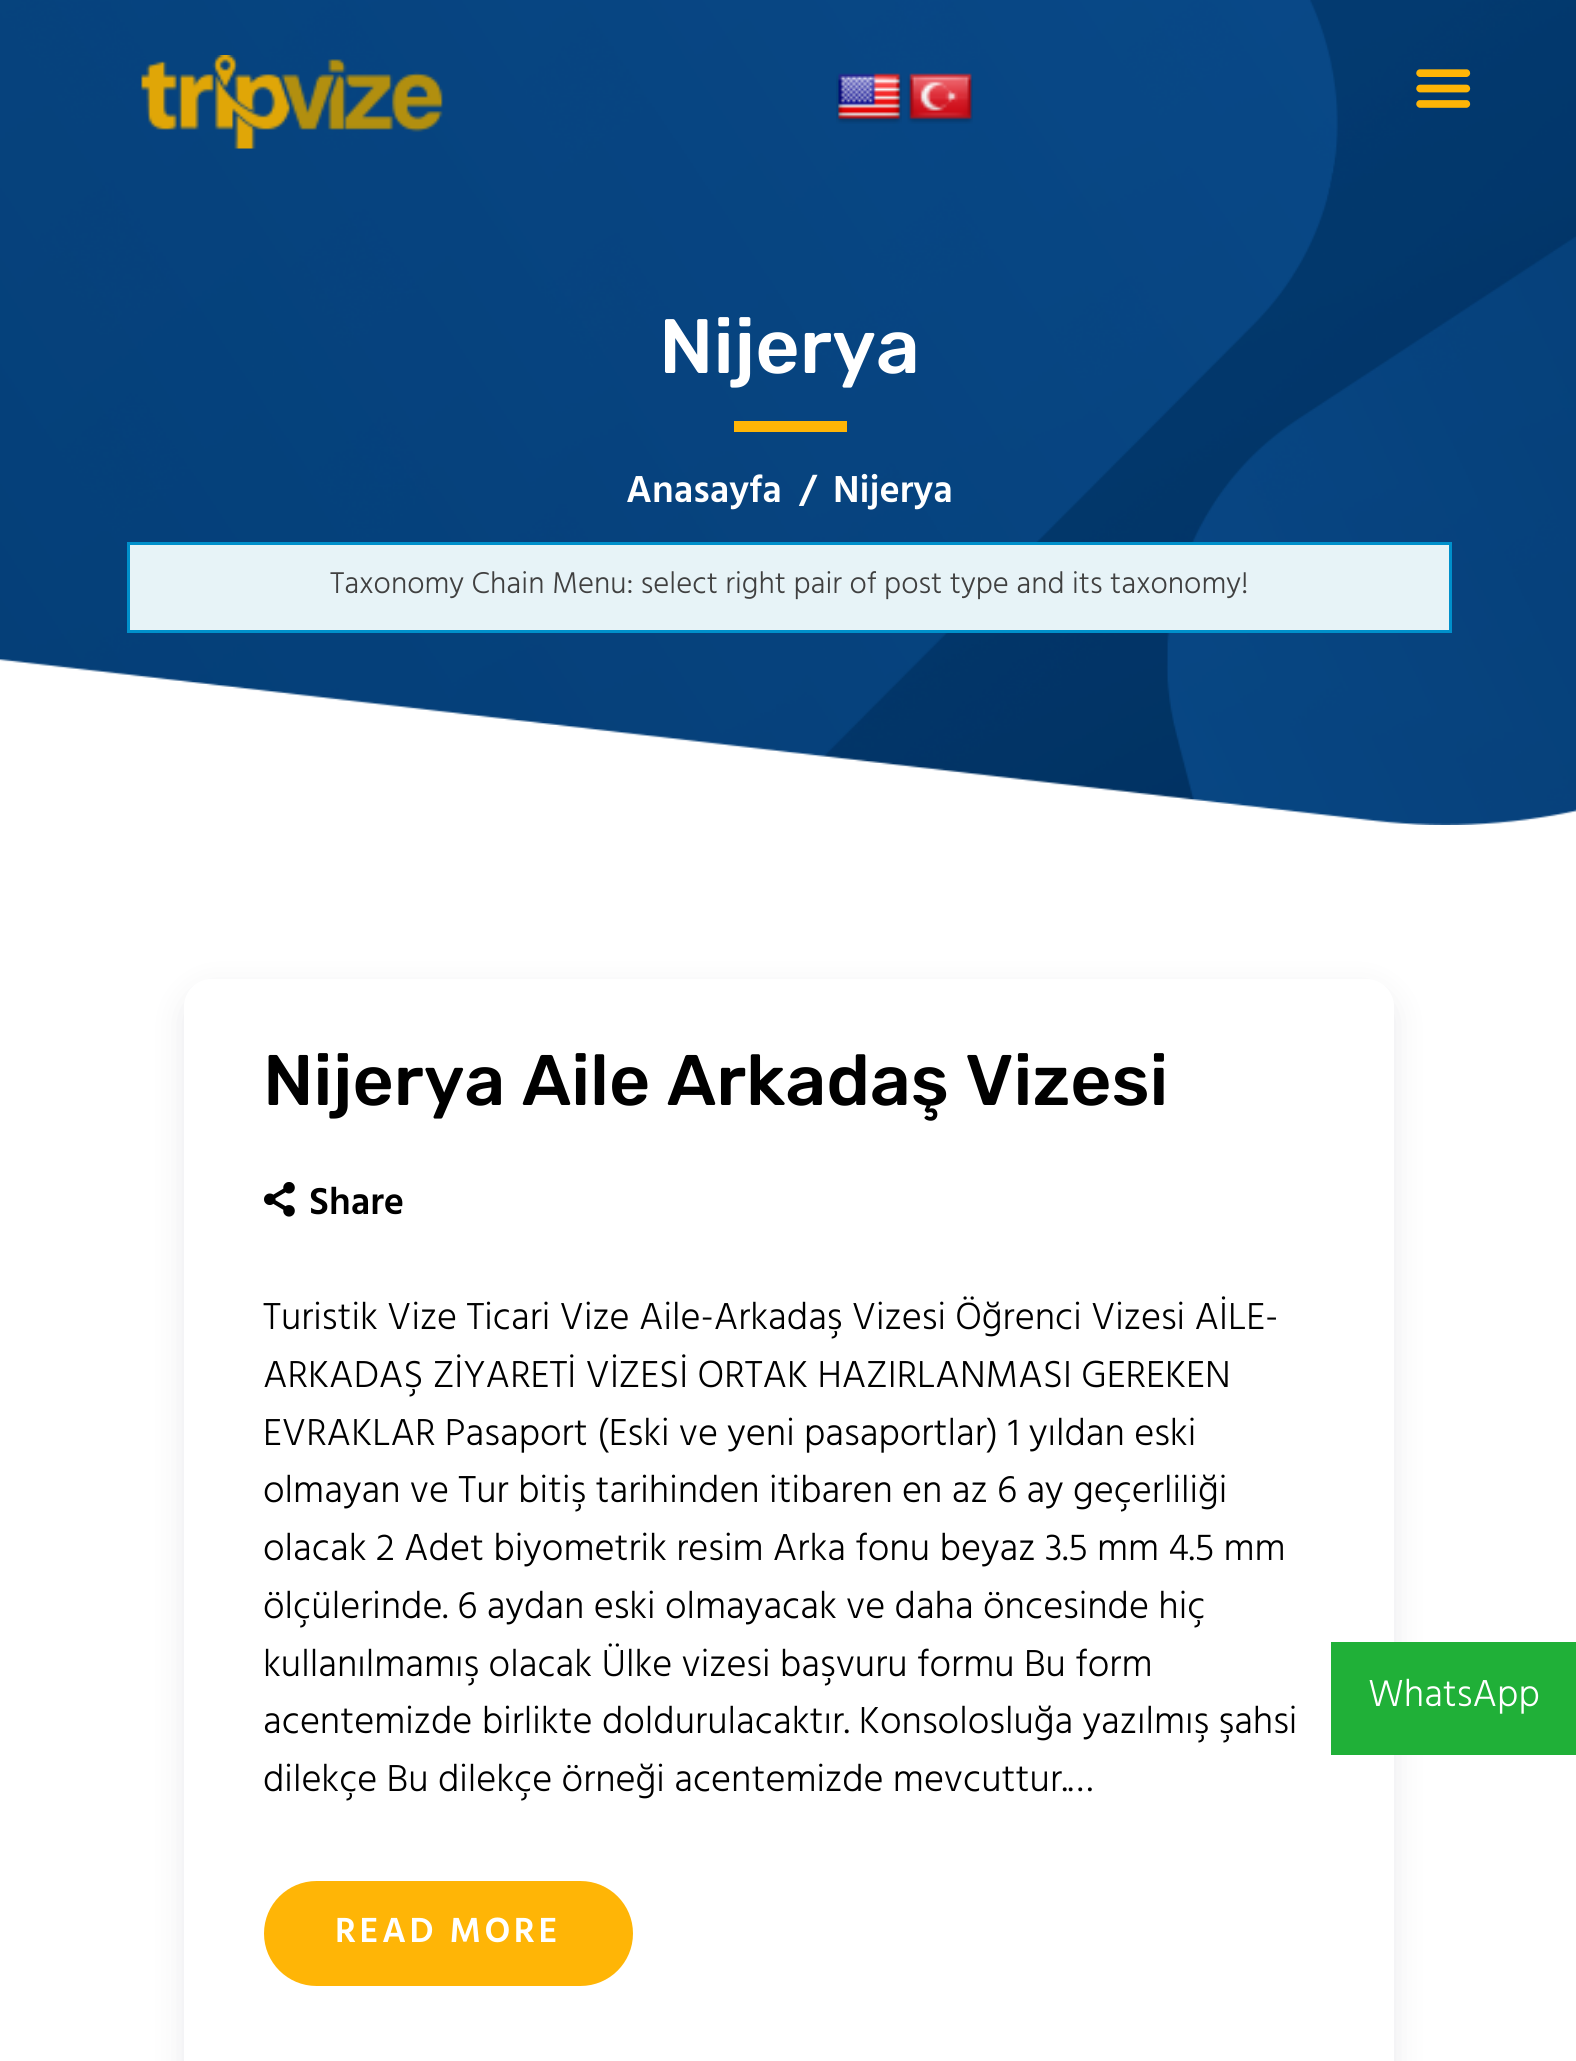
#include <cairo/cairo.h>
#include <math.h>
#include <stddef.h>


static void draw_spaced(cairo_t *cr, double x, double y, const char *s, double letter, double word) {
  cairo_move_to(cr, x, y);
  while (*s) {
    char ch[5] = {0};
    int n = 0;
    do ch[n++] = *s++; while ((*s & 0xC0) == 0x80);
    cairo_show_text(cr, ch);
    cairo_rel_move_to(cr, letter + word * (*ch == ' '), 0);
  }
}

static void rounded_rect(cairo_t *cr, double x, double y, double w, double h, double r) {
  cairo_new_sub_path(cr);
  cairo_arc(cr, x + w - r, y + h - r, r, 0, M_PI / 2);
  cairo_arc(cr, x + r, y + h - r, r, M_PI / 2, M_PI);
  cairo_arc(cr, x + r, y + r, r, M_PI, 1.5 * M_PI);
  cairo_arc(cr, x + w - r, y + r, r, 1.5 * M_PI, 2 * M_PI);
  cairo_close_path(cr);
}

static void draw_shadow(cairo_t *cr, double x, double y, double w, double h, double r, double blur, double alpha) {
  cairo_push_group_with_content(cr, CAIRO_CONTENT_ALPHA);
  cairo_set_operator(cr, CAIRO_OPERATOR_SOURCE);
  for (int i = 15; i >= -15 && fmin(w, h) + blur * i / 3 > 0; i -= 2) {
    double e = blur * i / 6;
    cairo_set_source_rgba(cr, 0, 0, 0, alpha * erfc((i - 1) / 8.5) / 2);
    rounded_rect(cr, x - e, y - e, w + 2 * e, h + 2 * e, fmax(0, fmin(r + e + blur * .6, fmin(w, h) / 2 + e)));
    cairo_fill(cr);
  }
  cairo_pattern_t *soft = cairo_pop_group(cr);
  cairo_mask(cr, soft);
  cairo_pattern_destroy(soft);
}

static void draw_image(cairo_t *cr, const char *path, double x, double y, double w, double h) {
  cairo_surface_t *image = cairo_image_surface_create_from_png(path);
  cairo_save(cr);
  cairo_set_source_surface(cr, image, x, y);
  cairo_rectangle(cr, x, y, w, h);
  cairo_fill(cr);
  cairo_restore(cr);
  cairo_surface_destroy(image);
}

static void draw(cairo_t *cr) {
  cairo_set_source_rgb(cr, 1, 1, 1);
  cairo_paint(cr);
  draw_image(cr, "images/1.png", 0, 0, 1576, 825);
  draw_image(cr, "images/2.png", 141, 55, 302, 94);
  draw_image(cr, "images/3.png", 836, 73, 66, 51);
  draw_image(cr, "images/4.png", 907, 73, 66, 51);
  draw_image(cr, "images/5.png", 1416, 69, 55, 39);
  cairo_set_source_rgb(cr, 1, 181 / 255.0, 6 / 255.0);
  cairo_rectangle(cr, 734, 421, 113, 11);
  cairo_fill(cr);
  cairo_set_source_rgb(cr, 231 / 255.0, 243 / 255.0, 247 / 255.0);
  cairo_rectangle(cr, 128.5, 543.5, 1322, 88);
  cairo_fill_preserve(cr);
  cairo_set_source_rgb(cr, 0, 144 / 255.0, 203 / 255.0);
  cairo_set_line_width(cr, 3);
  cairo_stroke(cr);
  cairo_save(cr);
  cairo_set_fill_rule(cr, CAIRO_FILL_RULE_EVEN_ODD);
  cairo_new_path(cr);
  cairo_move_to(cr, 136, 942);
  cairo_line_to(cr, 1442, 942);
  cairo_line_to(cr, 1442, 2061);
  cairo_line_to(cr, 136, 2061);
  cairo_close_path(cr);
  cairo_move_to(cr, 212, 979);
  cairo_line_to(cr, 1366, 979);
  cairo_curve_to(cr, 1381.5, 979, 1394, 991.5, 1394, 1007);
  cairo_line_to(cr, 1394, 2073);
  cairo_curve_to(cr, 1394, 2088.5, 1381.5, 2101, 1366, 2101);
  cairo_line_to(cr, 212, 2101);
  cairo_curve_to(cr, 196.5, 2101, 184, 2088.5, 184, 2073);
  cairo_line_to(cr, 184, 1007);
  cairo_curve_to(cr, 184, 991.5, 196.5, 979, 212, 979);
  cairo_close_path(cr);
  cairo_clip(cr);
  cairo_set_source_rgb(cr, 234 / 255.0, 234 / 255.0, 237 / 255.0);
  draw_shadow(cr, 184, 990, 1210, 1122, 28, 15.5, 1);
  cairo_restore(cr);
  draw_image(cr, "images/6.png", 264, 1182, 31, 35);
  cairo_set_source_rgb(cr, 1, 181 / 255.0, 6 / 255.0);
  rounded_rect(cr, 264, 1881, 369, 105, 52.5);
  cairo_fill(cr);
  cairo_set_source_rgb(cr, 32 / 255.0, 176 / 255.0, 56 / 255.0);
  cairo_rectangle(cr, 1331, 1642, 245, 113);
  cairo_fill(cr);
  cairo_select_font_face(cr, "Rubik Medium", CAIRO_FONT_SLANT_NORMAL, CAIRO_FONT_WEIGHT_NORMAL);
  cairo_set_font_size(cr, 77);
  cairo_set_source_rgb(cr, 1, 1, 1);
  cairo_move_to(cr, 659, 373);
  cairo_show_text(cr, "Nijerya");
  cairo_select_font_face(cr, "Hind SemiBold", CAIRO_FONT_SLANT_NORMAL, CAIRO_FONT_WEIGHT_NORMAL);
  cairo_set_font_size(cr, 38.5);
  cairo_move_to(cr, 626, 502);
  cairo_show_text(cr, "Anasayfa");
  cairo_move_to(cr, 799, 502);
  cairo_show_text(cr, "/");
  cairo_move_to(cr, 833, 502);
  cairo_show_text(cr, "Nijerya");
  cairo_select_font_face(cr, "Hind Light", CAIRO_FONT_SLANT_NORMAL, CAIRO_FONT_WEIGHT_NORMAL);
  cairo_set_font_size(cr, 30.8);
  cairo_set_source_rgb(cr, 64 / 255.0, 64 / 255.0, 64 / 255.0);
  cairo_move_to(cr, 330, 593);
  cairo_show_text(cr, "Taxonomy Chain Menu: select right pair of post type and its taxonomy!");
  cairo_select_font_face(cr, "Rubik Medium", CAIRO_FONT_SLANT_NORMAL, CAIRO_FONT_WEIGHT_NORMAL);
  cairo_set_font_size(cr, 71.5);
  cairo_set_source_rgb(cr, 0, 0, 0);
  cairo_move_to(cr, 263, 1105);
  cairo_show_text(cr, "Nijerya Aile Arkadaş Vizesi");
  cairo_select_font_face(cr, "Hind SemiBold", CAIRO_FONT_SLANT_NORMAL, CAIRO_FONT_WEIGHT_NORMAL);
  cairo_set_font_size(cr, 38.5);
  cairo_move_to(cr, 309, 1214);
  cairo_show_text(cr, "Share");
  cairo_select_font_face(cr, "Hind Light", CAIRO_FONT_SLANT_NORMAL, CAIRO_FONT_WEIGHT_NORMAL);
  cairo_move_to(cr, 263, 1329);
  cairo_show_text(cr, "Turistik Vize Ticari Vize Aile-Arkadaş Vizesi Öğrenci Vizesi AİLE-");
  cairo_move_to(cr, 263, 1387);
  cairo_show_text(cr, "ARKADAŞ ZİYARETİ VİZESİ ORTAK HAZIRLANMASI GEREKEN");
  cairo_move_to(cr, 263, 1445);
  cairo_show_text(cr, "EVRAKLAR Pasaport (Eski ve yeni pasaportlar) 1 yıldan eski");
  cairo_move_to(cr, 263, 1502);
  cairo_show_text(cr, "olmayan ve Tur bitiş tarihinden itibaren en az 6 ay geçerliliği");
  cairo_move_to(cr, 263, 1560);
  cairo_show_text(cr, "olacak 2 Adet biyometrik resim Arka fonu beyaz 3.5 mm 4.5 mm");
  cairo_move_to(cr, 263, 1618);
  cairo_show_text(cr, "ölçülerinde. 6 aydan eski olmayacak ve daha öncesinde hiç");
  cairo_move_to(cr, 263, 1676);
  cairo_show_text(cr, "kullanılmamış olacak Ülke vizesi başvuru formu Bu form");
  cairo_move_to(cr, 263, 1733);
  cairo_show_text(cr, "acentemizde birlikte doldurulacaktır. Konsolosluğa yazılmış şahsi");
  cairo_move_to(cr, 263, 1791);
  cairo_show_text(cr, "dilekçe Bu dilekçe örneği acentemizde mevcuttur.…");
  cairo_select_font_face(cr, "Hind SemiBold", CAIRO_FONT_SLANT_NORMAL, CAIRO_FONT_WEIGHT_NORMAL);
  cairo_set_font_size(cr, 35.75);
  cairo_set_source_rgb(cr, 1, 1, 1);
  draw_spaced(cr, 335, 1942, "READ MORE", 3.5, 0);
  cairo_select_font_face(cr, "Hind Light", CAIRO_FONT_SLANT_NORMAL, CAIRO_FONT_WEIGHT_NORMAL);
  cairo_set_font_size(cr, 38.5);
  cairo_move_to(cr, 1368, 1706);
  cairo_show_text(cr, "WhatsApp");
}

int main(void) {
  cairo_surface_t *surface = cairo_image_surface_create(CAIRO_FORMAT_RGB24, 1576, 2061);
  cairo_t *cr = cairo_create(surface);
  cairo_font_options_t *options = cairo_font_options_create();
  cairo_font_options_set_hint_metrics(options, CAIRO_HINT_METRICS_OFF);
  cairo_font_options_set_hint_style(options, CAIRO_HINT_STYLE_NONE);
  cairo_set_font_options(cr, options);
  cairo_set_miter_limit(cr, 4);
  draw(cr);
  cairo_surface_write_to_png(surface, "out.png");
  cairo_font_options_destroy(options);
  cairo_destroy(cr);
  cairo_surface_destroy(surface);
  return 0;
}
